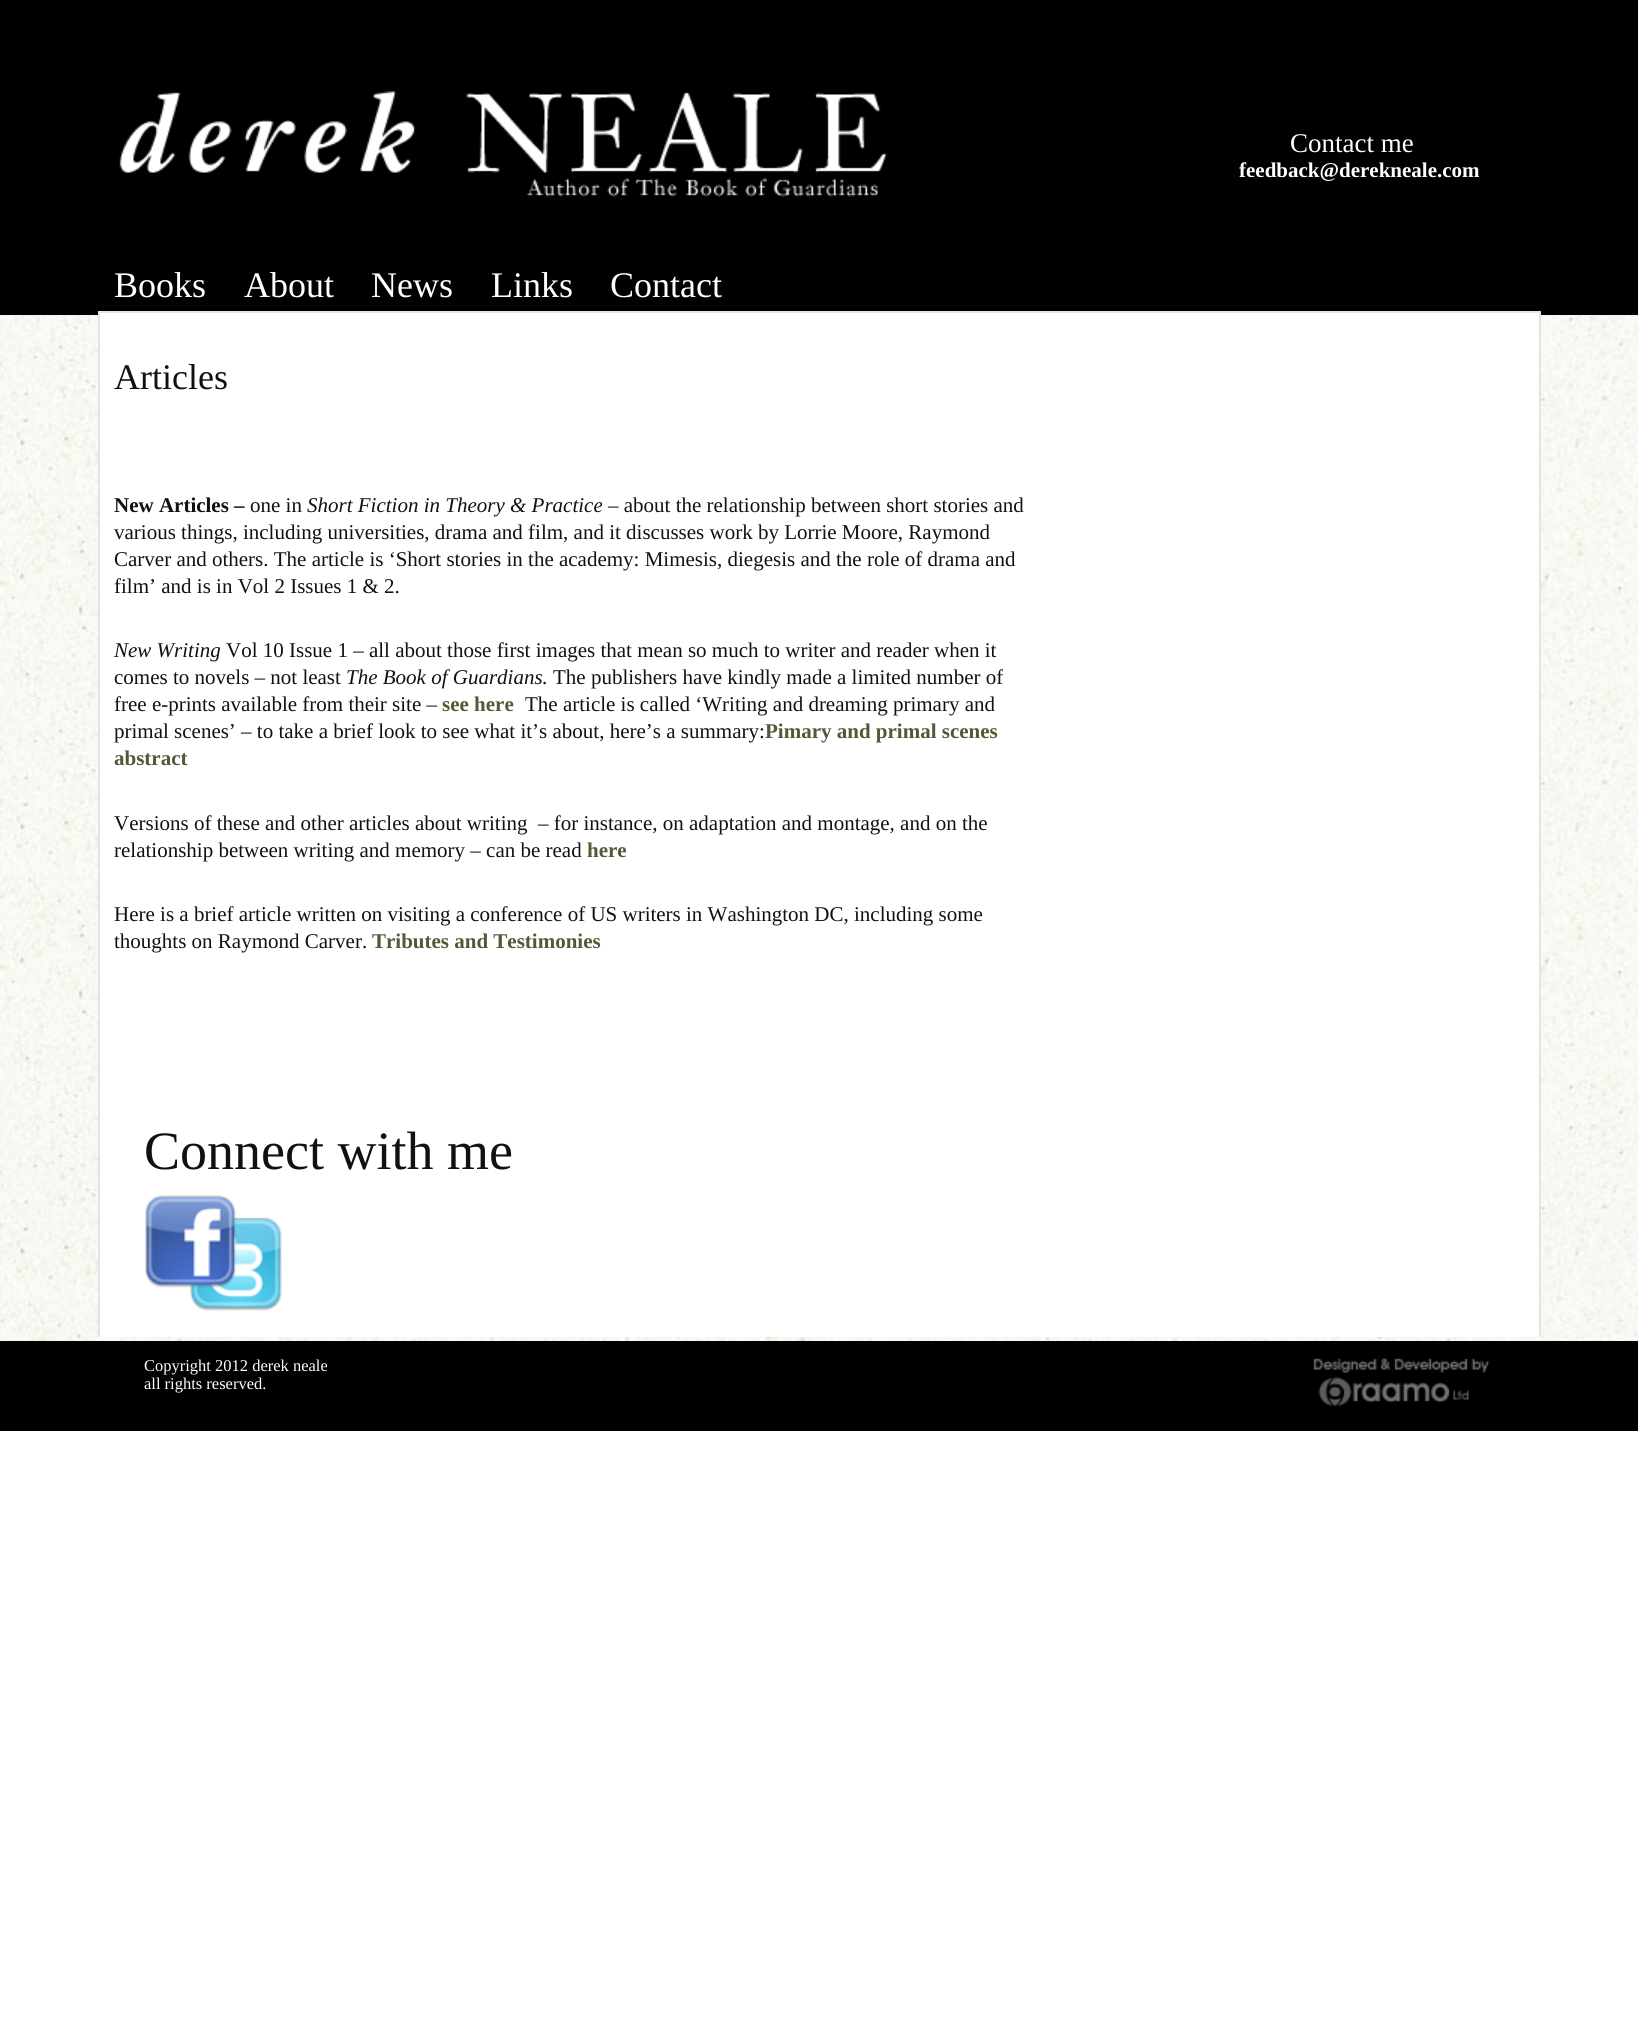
#include <cairo/cairo.h>
#include <math.h>
#include <stddef.h>


static void draw_image(cairo_t *cr, const char *path, double x, double y, double w, double h) {
  cairo_surface_t *image = cairo_image_surface_create_from_png(path);
  cairo_save(cr);
  cairo_set_source_surface(cr, image, x, y);
  cairo_rectangle(cr, x, y, w, h);
  cairo_fill(cr);
  cairo_restore(cr);
  cairo_surface_destroy(image);
}

static void draw(cairo_t *cr) {
  cairo_set_source_rgb(cr, 1, 1, 1);
  cairo_paint(cr);
  cairo_set_source_rgb(cr, 0, 0, 0);
  cairo_rectangle(cr, 0, 0, 1638, 315);
  cairo_fill(cr);
  draw_image(cr, "images/1.png", 119, 91, 768, 106);
  draw_image(cr, "images/2.png", 0, 315, 1638, 809);
  draw_image(cr, "images/3.png", 0, 1123, 1638, 218);
  cairo_set_source_rgb(cr, 1, 1, 1);
  cairo_rectangle(cr, 100, 313, 1439, 1024);
  cairo_fill(cr);
  cairo_set_source_rgb(cr, 228 / 255.0, 228 / 255.0, 228 / 255.0);
  cairo_rectangle(cr, 98, 311, 1443, 2);
  cairo_fill(cr);
  cairo_rectangle(cr, 1539, 311, 2, 1026);
  cairo_fill(cr);
  cairo_rectangle(cr, 98, 311, 2, 1026);
  cairo_fill(cr);
  draw_image(cr, "images/5.png", 190, 1217, 92, 94);
  draw_image(cr, "images/4.png", 145, 1195, 91, 93);
  cairo_set_source_rgb(cr, 0, 0, 0);
  cairo_rectangle(cr, 0, 1341, 1638, 90);
  cairo_fill(cr);
  draw_image(cr, "images/6.png", 1313, 1357, 177, 49);
  cairo_select_font_face(cr, "Liberation Serif", CAIRO_FONT_SLANT_NORMAL, CAIRO_FONT_WEIGHT_NORMAL);
  cairo_set_font_size(cr, 27);
  cairo_set_source_rgb(cr, 1, 1, 1);
  cairo_move_to(cr, 1290, 152);
  cairo_show_text(cr, "Contact me");
  cairo_select_font_face(cr, "Liberation Serif", CAIRO_FONT_SLANT_NORMAL, CAIRO_FONT_WEIGHT_BOLD);
  cairo_set_font_size(cr, 21);
  cairo_move_to(cr, 1239, 177);
  cairo_show_text(cr, "feedback@derekneale.com");
  cairo_select_font_face(cr, "Liberation Serif", CAIRO_FONT_SLANT_NORMAL, CAIRO_FONT_WEIGHT_NORMAL);
  cairo_set_font_size(cr, 36);
  cairo_move_to(cr, 114, 297);
  cairo_show_text(cr, "Books");
  cairo_move_to(cr, 244, 297);
  cairo_show_text(cr, "About");
  cairo_move_to(cr, 371, 297);
  cairo_show_text(cr, "News");
  cairo_move_to(cr, 491, 297);
  cairo_show_text(cr, "Links");
  cairo_move_to(cr, 610, 297);
  cairo_show_text(cr, "Contact");
  cairo_set_source_rgb(cr, 17 / 255.0, 17 / 255.0, 17 / 255.0);
  cairo_move_to(cr, 114, 389);
  cairo_show_text(cr, "Articles");
  cairo_select_font_face(cr, "Liberation Serif", CAIRO_FONT_SLANT_NORMAL, CAIRO_FONT_WEIGHT_BOLD);
  cairo_set_font_size(cr, 21);
  cairo_move_to(cr, 114, 512);
  cairo_show_text(cr, "New Articles –");
  cairo_select_font_face(cr, "Liberation Serif", CAIRO_FONT_SLANT_NORMAL, CAIRO_FONT_WEIGHT_NORMAL);
  cairo_move_to(cr, 250, 512);
  cairo_show_text(cr, "one in");
  cairo_select_font_face(cr, "Liberation Serif", CAIRO_FONT_SLANT_ITALIC, CAIRO_FONT_WEIGHT_NORMAL);
  cairo_move_to(cr, 307, 512);
  cairo_show_text(cr, "Short Fiction in Theory & Practice");
  cairo_select_font_face(cr, "Liberation Serif", CAIRO_FONT_SLANT_NORMAL, CAIRO_FONT_WEIGHT_NORMAL);
  cairo_move_to(cr, 608, 512);
  cairo_show_text(cr, "– about the relationship between short stories and");
  cairo_move_to(cr, 114, 539);
  cairo_show_text(cr, "various things, including universities, drama and film, and it discusses work by Lorrie Moore, Raymond");
  cairo_move_to(cr, 114, 566);
  cairo_show_text(cr, "Carver and others. The article is ‘Short stories in the academy: Mimesis, diegesis and the role of drama and");
  cairo_move_to(cr, 114, 593);
  cairo_show_text(cr, "film’ and is in Vol 2 Issues 1 & 2.");
  cairo_select_font_face(cr, "Liberation Serif", CAIRO_FONT_SLANT_ITALIC, CAIRO_FONT_WEIGHT_NORMAL);
  cairo_move_to(cr, 114, 657);
  cairo_show_text(cr, "New Writing");
  cairo_select_font_face(cr, "Liberation Serif", CAIRO_FONT_SLANT_NORMAL, CAIRO_FONT_WEIGHT_NORMAL);
  cairo_move_to(cr, 226, 657);
  cairo_show_text(cr, "Vol 10 Issue 1 – all about those first images that mean so much to writer and reader when it");
  cairo_move_to(cr, 114, 684);
  cairo_show_text(cr, "comes to novels – not least");
  cairo_select_font_face(cr, "Liberation Serif", CAIRO_FONT_SLANT_ITALIC, CAIRO_FONT_WEIGHT_NORMAL);
  cairo_move_to(cr, 346, 684);
  cairo_show_text(cr, "The Book of Guardians.");
  cairo_select_font_face(cr, "Liberation Serif", CAIRO_FONT_SLANT_NORMAL, CAIRO_FONT_WEIGHT_NORMAL);
  cairo_move_to(cr, 553, 684);
  cairo_show_text(cr, "The publishers have kindly made a limited number of");
  cairo_move_to(cr, 114, 711);
  cairo_show_text(cr, "free e-prints available from their site –");
  cairo_select_font_face(cr, "Liberation Serif", CAIRO_FONT_SLANT_NORMAL, CAIRO_FONT_WEIGHT_BOLD);
  cairo_set_source_rgb(cr, 87 / 255.0, 86 / 255.0, 54 / 255.0);
  cairo_move_to(cr, 442, 711);
  cairo_show_text(cr, "see here");
  cairo_select_font_face(cr, "Liberation Serif", CAIRO_FONT_SLANT_NORMAL, CAIRO_FONT_WEIGHT_NORMAL);
  cairo_set_source_rgb(cr, 17 / 255.0, 17 / 255.0, 17 / 255.0);
  cairo_move_to(cr, 525, 711);
  cairo_show_text(cr, "The article is called ‘Writing and dreaming primary and");
  cairo_move_to(cr, 114, 738);
  cairo_show_text(cr, "primal scenes’ – to take a brief look to see what it’s about, here’s a summary:");
  cairo_select_font_face(cr, "Liberation Serif", CAIRO_FONT_SLANT_NORMAL, CAIRO_FONT_WEIGHT_BOLD);
  cairo_set_source_rgb(cr, 87 / 255.0, 86 / 255.0, 54 / 255.0);
  cairo_move_to(cr, 765, 738);
  cairo_show_text(cr, "Pimary and primal scenes");
  cairo_move_to(cr, 114, 765);
  cairo_show_text(cr, "abstract");
  cairo_select_font_face(cr, "Liberation Serif", CAIRO_FONT_SLANT_NORMAL, CAIRO_FONT_WEIGHT_NORMAL);
  cairo_set_source_rgb(cr, 17 / 255.0, 17 / 255.0, 17 / 255.0);
  cairo_move_to(cr, 114, 830);
  cairo_show_text(cr, "Versions of these and other articles about writing  – for instance, on adaptation and montage, and on the");
  cairo_move_to(cr, 114, 857);
  cairo_show_text(cr, "relationship between writing and memory – can be read");
  cairo_select_font_face(cr, "Liberation Serif", CAIRO_FONT_SLANT_NORMAL, CAIRO_FONT_WEIGHT_BOLD);
  cairo_set_source_rgb(cr, 87 / 255.0, 86 / 255.0, 54 / 255.0);
  cairo_move_to(cr, 587, 857);
  cairo_show_text(cr, "here");
  cairo_select_font_face(cr, "Liberation Serif", CAIRO_FONT_SLANT_NORMAL, CAIRO_FONT_WEIGHT_NORMAL);
  cairo_set_source_rgb(cr, 17 / 255.0, 17 / 255.0, 17 / 255.0);
  cairo_move_to(cr, 114, 921);
  cairo_show_text(cr, "Here is a brief article written on visiting a conference of US writers in Washington DC, including some");
  cairo_move_to(cr, 114, 948);
  cairo_show_text(cr, "thoughts on Raymond Carver.");
  cairo_select_font_face(cr, "Liberation Serif", CAIRO_FONT_SLANT_NORMAL, CAIRO_FONT_WEIGHT_BOLD);
  cairo_set_source_rgb(cr, 87 / 255.0, 86 / 255.0, 54 / 255.0);
  cairo_move_to(cr, 372, 948);
  cairo_show_text(cr, "Tributes and Testimonies");
  cairo_select_font_face(cr, "Liberation Serif", CAIRO_FONT_SLANT_NORMAL, CAIRO_FONT_WEIGHT_NORMAL);
  cairo_set_font_size(cr, 54);
  cairo_set_source_rgb(cr, 17 / 255.0, 17 / 255.0, 17 / 255.0);
  cairo_move_to(cr, 144, 1169);
  cairo_show_text(cr, "Connect with me");
  cairo_set_font_size(cr, 16.5);
  cairo_set_source_rgb(cr, 1, 1, 1);
  cairo_move_to(cr, 144, 1371);
  cairo_show_text(cr, "Copyright 2012 derek neale");
  cairo_move_to(cr, 144, 1389);
  cairo_show_text(cr, "all rights reserved.");
}

int main(void) {
  cairo_surface_t *surface = cairo_image_surface_create(CAIRO_FORMAT_RGB24, 1638, 2035);
  cairo_t *cr = cairo_create(surface);
  cairo_font_options_t *options = cairo_font_options_create();
  cairo_font_options_set_hint_metrics(options, CAIRO_HINT_METRICS_OFF);
  cairo_font_options_set_hint_style(options, CAIRO_HINT_STYLE_NONE);
  cairo_set_font_options(cr, options);
  cairo_set_miter_limit(cr, 4);
  draw(cr);
  cairo_surface_write_to_png(surface, "out.png");
  cairo_font_options_destroy(options);
  cairo_destroy(cr);
  cairo_surface_destroy(surface);
  return 0;
}
